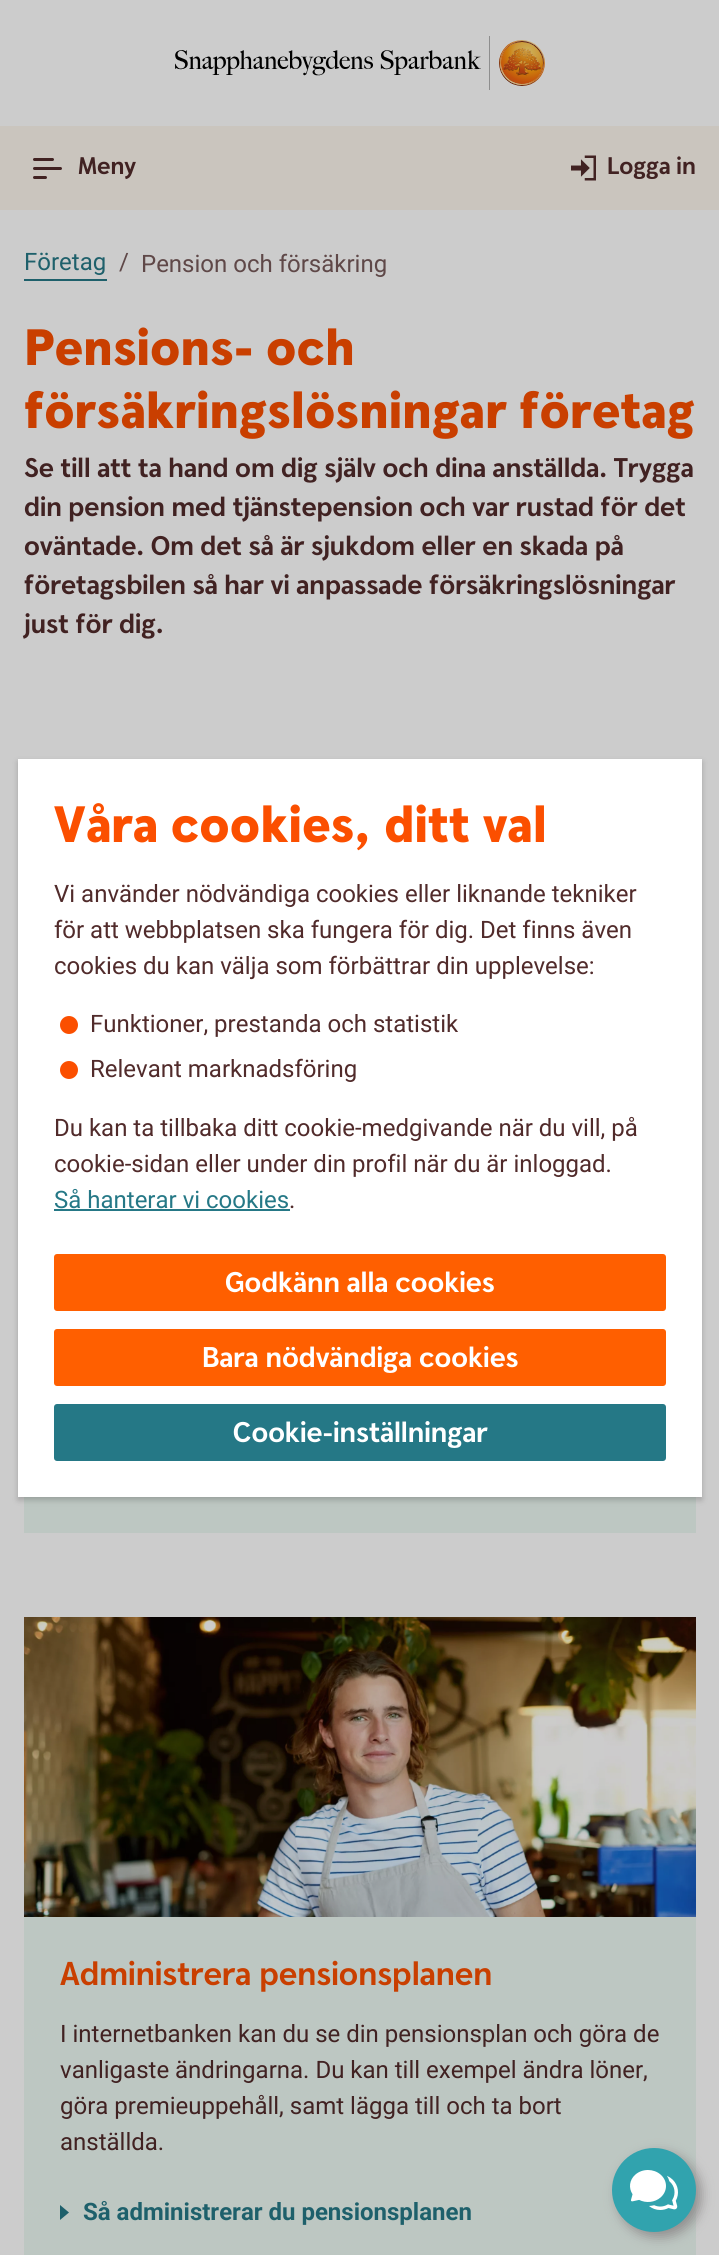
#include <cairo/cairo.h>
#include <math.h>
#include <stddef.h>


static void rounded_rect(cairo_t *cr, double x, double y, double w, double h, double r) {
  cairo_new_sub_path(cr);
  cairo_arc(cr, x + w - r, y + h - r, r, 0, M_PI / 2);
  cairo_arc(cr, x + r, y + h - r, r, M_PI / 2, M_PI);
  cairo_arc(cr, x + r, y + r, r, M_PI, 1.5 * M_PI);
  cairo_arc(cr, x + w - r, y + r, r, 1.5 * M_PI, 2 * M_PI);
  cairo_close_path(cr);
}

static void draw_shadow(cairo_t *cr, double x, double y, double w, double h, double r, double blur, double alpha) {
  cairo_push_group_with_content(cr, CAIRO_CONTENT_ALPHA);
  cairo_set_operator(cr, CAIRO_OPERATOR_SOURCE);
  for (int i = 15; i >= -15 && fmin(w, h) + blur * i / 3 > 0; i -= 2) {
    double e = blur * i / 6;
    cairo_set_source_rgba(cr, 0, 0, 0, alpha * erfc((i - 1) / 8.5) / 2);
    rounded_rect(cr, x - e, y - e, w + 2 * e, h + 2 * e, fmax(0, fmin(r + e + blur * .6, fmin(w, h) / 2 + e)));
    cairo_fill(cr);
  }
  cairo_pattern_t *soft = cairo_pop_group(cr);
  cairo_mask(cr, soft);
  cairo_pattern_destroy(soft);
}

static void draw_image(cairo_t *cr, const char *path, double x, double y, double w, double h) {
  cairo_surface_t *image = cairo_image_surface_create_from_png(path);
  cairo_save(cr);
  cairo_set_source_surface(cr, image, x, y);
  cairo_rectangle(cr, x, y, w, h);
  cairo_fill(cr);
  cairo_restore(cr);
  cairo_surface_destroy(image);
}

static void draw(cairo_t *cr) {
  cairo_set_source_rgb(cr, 204 / 255.0, 204 / 255.0, 204 / 255.0);
  cairo_paint(cr);
  draw_image(cr, "images/1.png", 175, 36, 370, 54);
  cairo_set_source_rgb(cr, 202 / 255.0, 197 / 255.0, 190 / 255.0);
  cairo_rectangle(cr, 0, 126, 719, 84);
  cairo_fill(cr);
  cairo_set_source_rgb(cr, 65 / 255.0, 34 / 255.0, 34 / 255.0);
  rounded_rect(cr, 33, 158, 21, 3, 1.5);
  cairo_fill(cr);
  rounded_rect(cr, 33, 167, 29, 3, 1.5);
  cairo_fill(cr);
  rounded_rect(cr, 33, 176, 14, 3, 1.5);
  cairo_fill(cr);
  draw_image(cr, "images/2.png", 571, 155, 25, 26);
  cairo_set_source_rgb(cr, 30 / 255.0, 96 / 255.0, 107 / 255.0);
  cairo_rectangle(cr, 24, 279, 83, 2);
  cairo_fill(cr);
  cairo_set_source_rgb(cr, 189 / 255.0, 199 / 255.0, 194 / 255.0);
  cairo_rectangle(cr, 24, 1497, 672, 36);
  cairo_fill(cr);
  cairo_rectangle(cr, 24, 1917, 672, 338);
  cairo_fill(cr);
  draw_image(cr, "images/3.png", 24, 1617, 672, 300);
  cairo_set_source_rgb(cr, 30 / 255.0, 96 / 255.0, 107 / 255.0);
  cairo_new_path(cr);
  cairo_move_to(cr, 69, 2212.5);
  cairo_line_to(cr, 60, 2220);
  cairo_line_to(cr, 60, 2205);
  cairo_close_path(cr);
  cairo_fill(cr);
  cairo_set_source_rgb(cr, 0, 0, 0);
  draw_shadow(cr, 18, 762, 684, 738, 0, 3, 0.2);
  cairo_set_source_rgb(cr, 1, 1, 1);
  cairo_rectangle(cr, 18, 759, 684, 738);
  cairo_fill(cr);
  cairo_set_source_rgb(cr, 251 / 255.0, 79 / 255.0, 0);
  cairo_arc(cr, 69, 1025, 9, 0, 2 * M_PI);
  cairo_fill(cr);
  cairo_arc(cr, 69, 1070, 9, 0, 2 * M_PI);
  cairo_fill(cr);
  cairo_set_source_rgb(cr, 37 / 255.0, 120 / 255.0, 134 / 255.0);
  cairo_rectangle(cr, 54, 1209, 236, 2);
  cairo_fill(cr);
  cairo_set_source_rgb(cr, 1, 95 / 255.0, 0);
  rounded_rect(cr, 54, 1254, 612, 57, 3);
  cairo_fill(cr);
  rounded_rect(cr, 54, 1329, 612, 57, 3);
  cairo_fill(cr);
  cairo_set_source_rgb(cr, 37 / 255.0, 120 / 255.0, 134 / 255.0);
  rounded_rect(cr, 54, 1404, 612, 57, 3);
  cairo_fill(cr);
  cairo_set_source_rgb(cr, 144 / 255.0, 142 / 255.0, 142 / 255.0);
  draw_shadow(cr, 617, 2153, 84, 84, 42, 6, 1);
  cairo_set_source_rgb(cr, 49 / 255.0, 163 / 255.0, 174 / 255.0);
  cairo_arc(cr, 654, 2190, 42, 0, 2 * M_PI);
  cairo_fill(cr);
  draw_image(cr, "images/4.png", 630, 2170, 48, 40);
  cairo_select_font_face(cr, "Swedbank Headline", CAIRO_FONT_SLANT_NORMAL, CAIRO_FONT_WEIGHT_BOLD);
  cairo_set_font_size(cr, 24);
  cairo_set_source_rgb(cr, 65 / 255.0, 34 / 255.0, 34 / 255.0);
  cairo_move_to(cr, 78, 174);
  cairo_show_text(cr, "Meny");
  cairo_move_to(cr, 607, 174);
  cairo_show_text(cr, "Logga in");
  cairo_select_font_face(cr, "Roboto", CAIRO_FONT_SLANT_NORMAL, CAIRO_FONT_WEIGHT_NORMAL);
  cairo_set_source_rgb(cr, 30 / 255.0, 96 / 255.0, 107 / 255.0);
  cairo_move_to(cr, 24, 270);
  cairo_show_text(cr, "Företag");
  cairo_set_source_rgb(cr, 95 / 255.0, 72 / 255.0, 72 / 255.0);
  cairo_move_to(cr, 119, 270);
  cairo_show_text(cr, "/");
  cairo_move_to(cr, 141, 272);
  cairo_show_text(cr, "Pension och försäkring");
  cairo_select_font_face(cr, "Swedbank Headline Black", CAIRO_FONT_SLANT_NORMAL, CAIRO_FONT_WEIGHT_NORMAL);
  cairo_set_font_size(cr, 51);
  cairo_set_source_rgb(cr, 201 / 255.0, 63 / 255.0, 0);
  cairo_move_to(cr, 24, 365);
  cairo_show_text(cr, "Pensions- och");
  cairo_move_to(cr, 24, 428);
  cairo_show_text(cr, "försäkringslösningar företag");
  cairo_select_font_face(cr, "Swedbank Headline", CAIRO_FONT_SLANT_NORMAL, CAIRO_FONT_WEIGHT_BOLD);
  cairo_set_font_size(cr, 27);
  cairo_set_source_rgb(cr, 65 / 255.0, 34 / 255.0, 34 / 255.0);
  cairo_move_to(cr, 24, 477);
  cairo_show_text(cr, "Se till att ta hand om dig själv och dina anställda. Trygga");
  cairo_move_to(cr, 24, 516);
  cairo_show_text(cr, "din pension med tjänstepension och var rustad för det");
  cairo_move_to(cr, 24, 555);
  cairo_show_text(cr, "oväntade. Om det så är sjukdom eller en skada på");
  cairo_move_to(cr, 24, 594);
  cairo_show_text(cr, "företagsbilen så har vi anpassade försäkringslösningar");
  cairo_move_to(cr, 24, 633);
  cairo_show_text(cr, "just för dig.");
  cairo_set_font_size(cr, 33);
  cairo_set_source_rgb(cr, 201 / 255.0, 63 / 255.0, 0);
  cairo_move_to(cr, 60, 1985);
  cairo_show_text(cr, "Administrera pensionsplanen");
  cairo_select_font_face(cr, "Roboto", CAIRO_FONT_SLANT_NORMAL, CAIRO_FONT_WEIGHT_NORMAL);
  cairo_set_font_size(cr, 24);
  cairo_set_source_rgb(cr, 65 / 255.0, 34 / 255.0, 34 / 255.0);
  cairo_move_to(cr, 60, 2042);
  cairo_show_text(cr, "I internetbanken kan du se din pensionsplan och göra de");
  cairo_move_to(cr, 60, 2078);
  cairo_show_text(cr, "vanligaste ändringarna. Du kan till exempel ändra löner,");
  cairo_move_to(cr, 60, 2114);
  cairo_show_text(cr, "göra premieuppehåll, samt lägga till och ta bort");
  cairo_move_to(cr, 60, 2150);
  cairo_show_text(cr, "anställda.");
  cairo_select_font_face(cr, "Roboto", CAIRO_FONT_SLANT_NORMAL, CAIRO_FONT_WEIGHT_BOLD);
  cairo_set_source_rgb(cr, 30 / 255.0, 96 / 255.0, 107 / 255.0);
  cairo_move_to(cr, 83, 2220);
  cairo_show_text(cr, "Så administrerar du pensionsplanen");
  cairo_select_font_face(cr, "Swedbank Headline Black", CAIRO_FONT_SLANT_NORMAL, CAIRO_FONT_WEIGHT_NORMAL);
  cairo_set_font_size(cr, 51);
  cairo_set_source_rgb(cr, 251 / 255.0, 79 / 255.0, 0);
  cairo_move_to(cr, 54, 842);
  cairo_show_text(cr, "Våra cookies, ditt val");
  cairo_select_font_face(cr, "Roboto", CAIRO_FONT_SLANT_NORMAL, CAIRO_FONT_WEIGHT_NORMAL);
  cairo_set_font_size(cr, 24);
  cairo_set_source_rgb(cr, 81 / 255.0, 43 / 255.0, 43 / 255.0);
  cairo_move_to(cr, 54, 902);
  cairo_show_text(cr, "Vi använder nödvändiga cookies eller liknande tekniker");
  cairo_move_to(cr, 54, 938);
  cairo_show_text(cr, "för att webbplatsen ska fungera för dig. Det finns även");
  cairo_move_to(cr, 54, 974);
  cairo_show_text(cr, "cookies du kan välja som förbättrar din upplevelse:");
  cairo_move_to(cr, 90, 1032);
  cairo_show_text(cr, "Funktioner, prestanda och statistik");
  cairo_move_to(cr, 90, 1077);
  cairo_show_text(cr, "Relevant marknadsföring");
  cairo_move_to(cr, 54, 1136);
  cairo_show_text(cr, "Du kan ta tillbaka ditt cookie-medgivande när du vill, på");
  cairo_move_to(cr, 54, 1172);
  cairo_show_text(cr, "cookie-sidan eller under din profil när du är inloggad.");
  cairo_set_source_rgb(cr, 37 / 255.0, 120 / 255.0, 134 / 255.0);
  cairo_move_to(cr, 54, 1208);
  cairo_show_text(cr, "Så hanterar vi cookies");
  cairo_set_source_rgb(cr, 81 / 255.0, 43 / 255.0, 43 / 255.0);
  cairo_move_to(cr, 289, 1208);
  cairo_show_text(cr, ".");
  cairo_select_font_face(cr, "Swedbank Headline", CAIRO_FONT_SLANT_NORMAL, CAIRO_FONT_WEIGHT_BOLD);
  cairo_set_font_size(cr, 28.5);
  cairo_set_source_rgb(cr, 1, 1, 1);
  cairo_move_to(cr, 225, 1292);
  cairo_show_text(cr, "Godkänn alla cookies");
  cairo_move_to(cr, 202, 1367);
  cairo_show_text(cr, "Bara nödvändiga cookies");
  cairo_move_to(cr, 233, 1442);
  cairo_show_text(cr, "Cookie-inställningar");
}

int main(void) {
  cairo_surface_t *surface = cairo_image_surface_create(CAIRO_FORMAT_RGB24, 719, 2255);
  cairo_t *cr = cairo_create(surface);
  cairo_font_options_t *options = cairo_font_options_create();
  cairo_font_options_set_hint_metrics(options, CAIRO_HINT_METRICS_OFF);
  cairo_font_options_set_hint_style(options, CAIRO_HINT_STYLE_NONE);
  cairo_set_font_options(cr, options);
  cairo_set_miter_limit(cr, 4);
  draw(cr);
  cairo_surface_write_to_png(surface, "out.png");
  cairo_font_options_destroy(options);
  cairo_destroy(cr);
  cairo_surface_destroy(surface);
  return 0;
}
